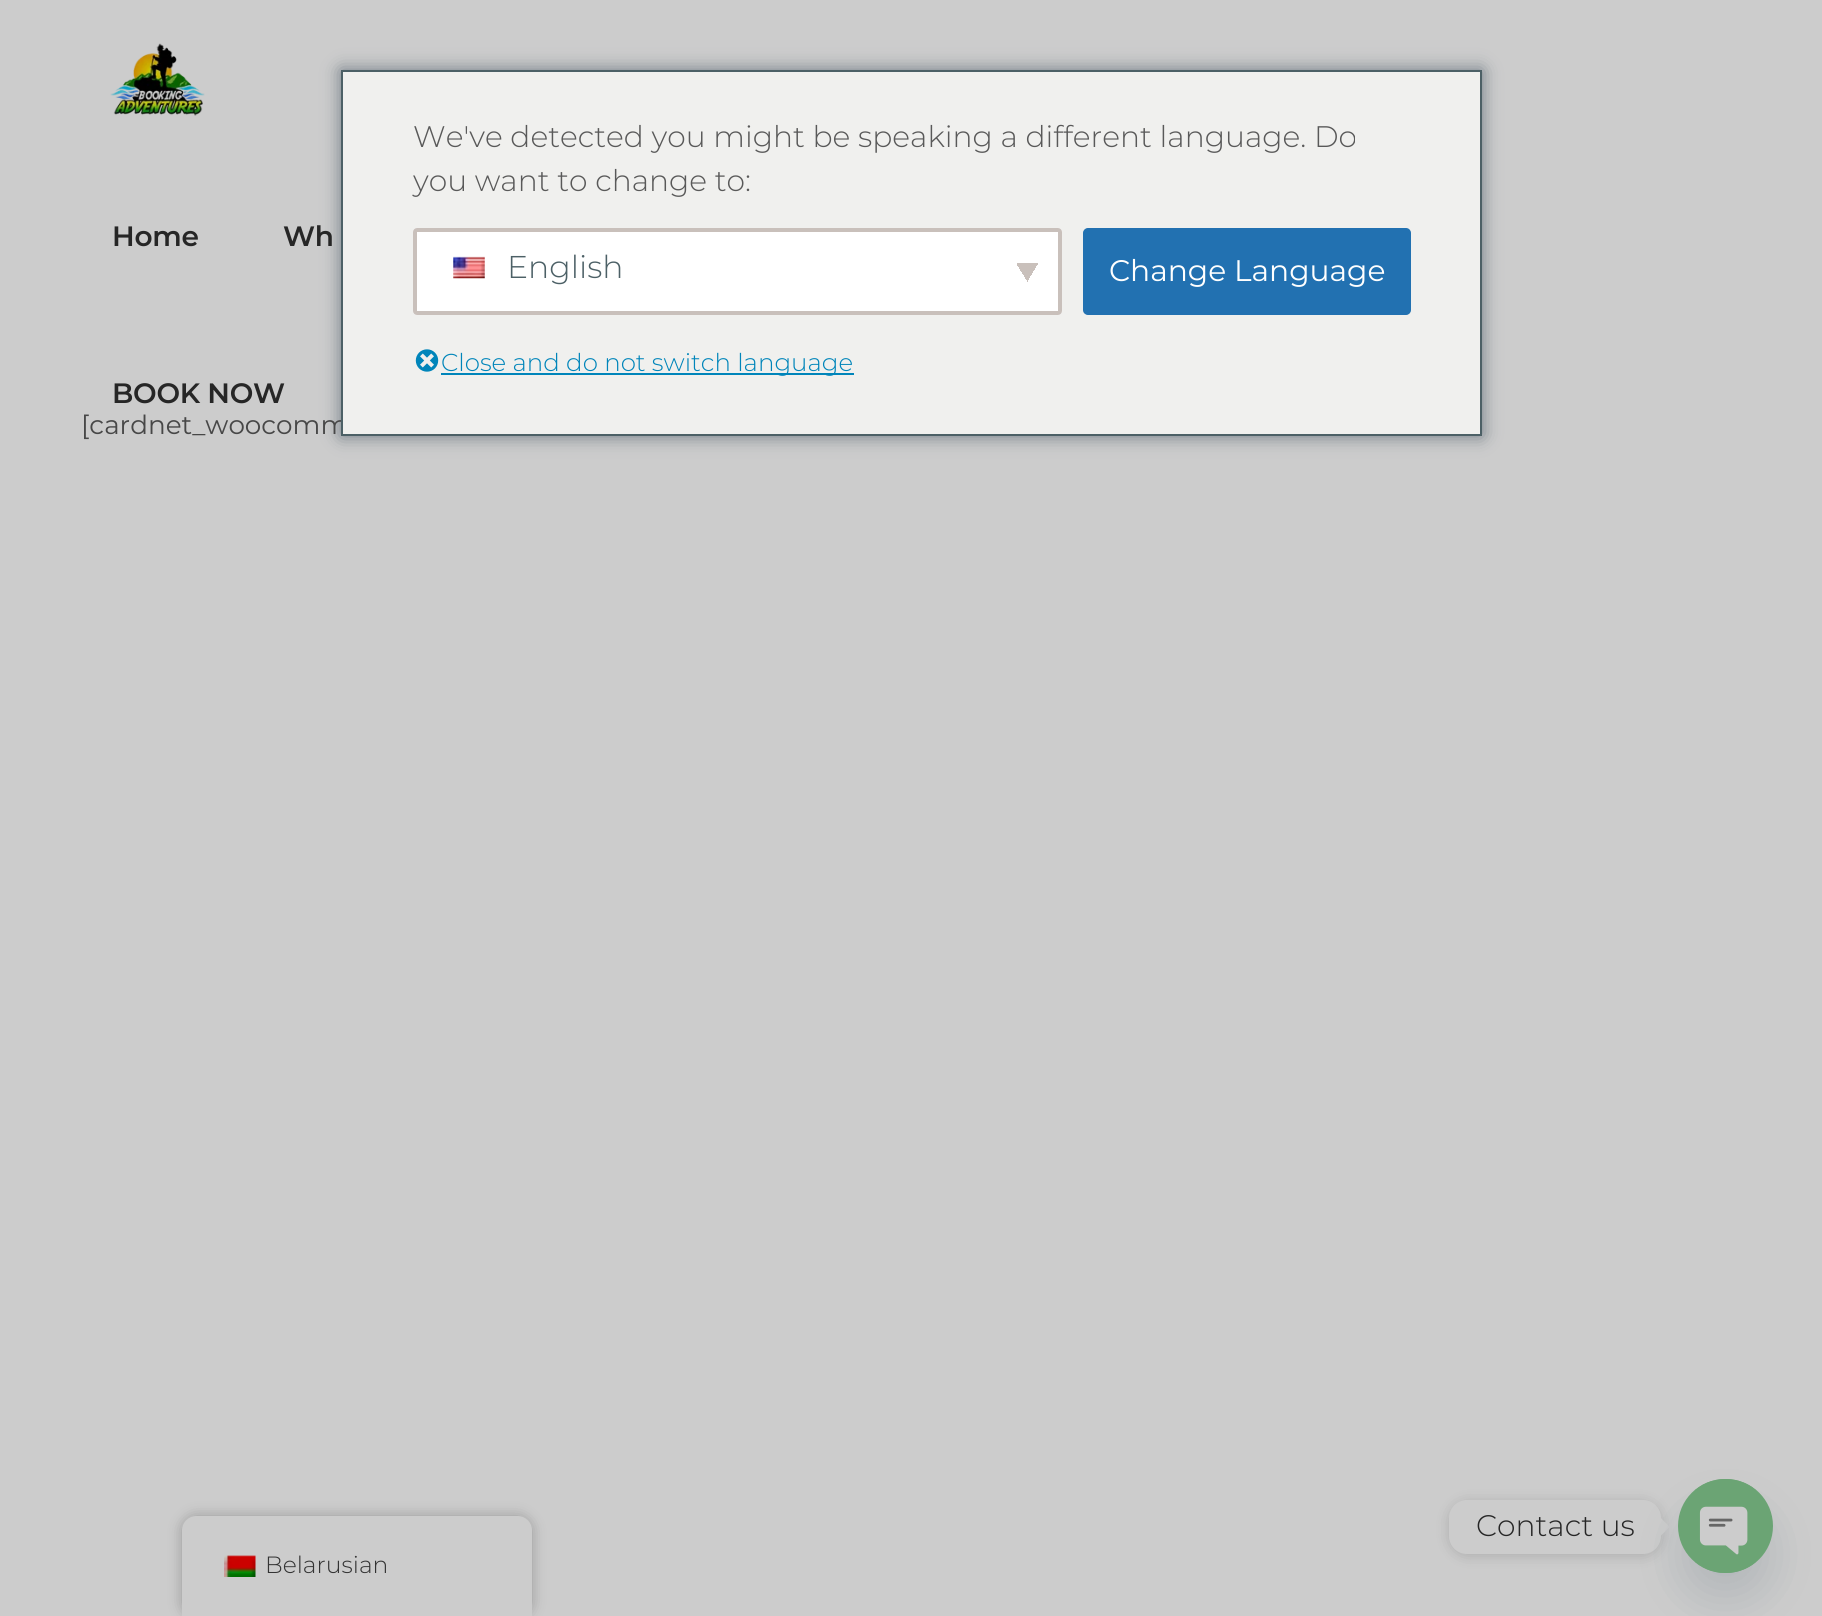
#include <cairo/cairo.h>
#include <math.h>
#include <stddef.h>


static void draw_spaced(cairo_t *cr, double x, double y, const char *s, double letter, double word) {
  cairo_move_to(cr, x, y);
  while (*s) {
    char ch[5] = {0};
    int n = 0;
    do ch[n++] = *s++; while ((*s & 0xC0) == 0x80);
    cairo_show_text(cr, ch);
    cairo_rel_move_to(cr, letter + word * (*ch == ' '), 0);
  }
}

static void rounded_rect(cairo_t *cr, double x, double y, double w, double h, double r) {
  cairo_new_sub_path(cr);
  cairo_arc(cr, x + w - r, y + h - r, r, 0, M_PI / 2);
  cairo_arc(cr, x + r, y + h - r, r, M_PI / 2, M_PI);
  cairo_arc(cr, x + r, y + r, r, M_PI, 1.5 * M_PI);
  cairo_arc(cr, x + w - r, y + r, r, 1.5 * M_PI, 2 * M_PI);
  cairo_close_path(cr);
}

static void draw_shadow(cairo_t *cr, double x, double y, double w, double h, double r, double blur, double alpha) {
  cairo_push_group_with_content(cr, CAIRO_CONTENT_ALPHA);
  cairo_set_operator(cr, CAIRO_OPERATOR_SOURCE);
  for (int i = 15; i >= -15 && fmin(w, h) + blur * i / 3 > 0; i -= 2) {
    double e = blur * i / 6;
    cairo_set_source_rgba(cr, 0, 0, 0, alpha * erfc((i - 1) / 8.5) / 2);
    rounded_rect(cr, x - e, y - e, w + 2 * e, h + 2 * e, fmax(0, fmin(r + e + blur * .6, fmin(w, h) / 2 + e)));
    cairo_fill(cr);
  }
  cairo_pattern_t *soft = cairo_pop_group(cr);
  cairo_mask(cr, soft);
  cairo_pattern_destroy(soft);
}

static void draw_image(cairo_t *cr, const char *path, double x, double y, double w, double h) {
  cairo_surface_t *image = cairo_image_surface_create_from_png(path);
  cairo_save(cr);
  cairo_set_source_surface(cr, image, x, y);
  cairo_rectangle(cr, x, y, w, h);
  cairo_fill(cr);
  cairo_restore(cr);
  cairo_surface_destroy(image);
}

static void draw(cairo_t *cr) {
  cairo_pattern_t *gradient;
  cairo_set_source_rgb(cr, 204 / 255.0, 204 / 255.0, 204 / 255.0);
  cairo_paint(cr);
  draw_image(cr, "images/1.png", 110, 43, 95, 73);
  cairo_set_source_rgb(cr, 108 / 255.0, 119 / 255.0, 129 / 255.0);
  draw_shadow(cr, 341, 70, 1141, 366, 0, 9, 1);
  cairo_set_source_rgb(cr, 0, 0, 0);
  draw_shadow(cr, 1449, 1502, 212, 54, 18, 7, 0.15);
  cairo_set_source_rgb(cr, 204 / 255.0, 204 / 255.0, 204 / 255.0);
  rounded_rect(cr, 1449, 1500, 212, 54, 18);
  cairo_fill(cr);
  cairo_new_path(cr);
  cairo_move_to(cr, 1661, 1535.5);
  cairo_line_to(cr, 1661, 1518);
  cairo_line_to(cr, 1669.5, 1527);
  cairo_close_path(cr);
  cairo_fill(cr);
  cairo_set_source_rgb(cr, 58 / 255.0, 83 / 255.0, 101 / 255.0);
  draw_shadow(cr, 1678, 1507, 95, 94, 47, 21, 0.16);
  cairo_set_source_rgb(cr, 107 / 255.0, 164 / 255.0, 116 / 255.0);
  rounded_rect(cr, 1678, 1479, 95, 94, 47);
  cairo_fill(cr);
  draw_image(cr, "images/4.png", 1695, 1479, 61, 94);
  cairo_set_source_rgb(cr, 0, 0, 0);
  draw_shadow(cr, 182, 1516, 350, 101, 14, 7, 0.25);
  cairo_set_source_rgb(cr, 204 / 255.0, 204 / 255.0, 204 / 255.0);
  cairo_new_path(cr);
  cairo_move_to(cr, 196, 1516);
  cairo_line_to(cr, 518, 1516);
  cairo_curve_to(cr, 525.5, 1516, 532, 1522.5, 532, 1530);
  cairo_line_to(cr, 532, 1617);
  cairo_line_to(cr, 182, 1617);
  cairo_line_to(cr, 182, 1530);
  cairo_curve_to(cr, 182, 1522.5, 188.5, 1516, 196, 1516);
  cairo_close_path(cr);
  cairo_fill(cr);
  draw_image(cr, "images/5.png", 224, 1555, 32, 22);
  cairo_select_font_face(cr, "Montserrat SemiBold", CAIRO_FONT_SLANT_NORMAL, CAIRO_FONT_WEIGHT_NORMAL);
  cairo_set_font_size(cr, 28);
  cairo_set_source_rgb(cr, 38 / 255.0, 38 / 255.0, 38 / 255.0);
  draw_spaced(cr, 112, 246, "Home", -0.25, 0);
  draw_spaced(cr, 283, 246, "Wh", -0.25, 0);
  draw_spaced(cr, 112, 403, "BOOK NOW", -0.25, 0);
  cairo_select_font_face(cr, "Montserrat", CAIRO_FONT_SLANT_NORMAL, CAIRO_FONT_WEIGHT_NORMAL);
  cairo_set_font_size(cr, 26.25);
  cairo_set_source_rgb(cr, 71 / 255.0, 71 / 255.0, 71 / 255.0);
  cairo_move_to(cr, 81, 434);
  cairo_show_text(cr, "[cardnet_woocomm");
  cairo_set_source_rgb(cr, 240 / 255.0, 240 / 255.0, 238 / 255.0);
  cairo_rectangle(cr, 342, 71, 1139, 364);
  cairo_fill_preserve(cr);
  cairo_set_source_rgb(cr, 76 / 255.0, 96 / 255.0, 102 / 255.0);
  cairo_stroke(cr);
  cairo_select_font_face(cr, "Montserrat Light", CAIRO_FONT_SLANT_NORMAL, CAIRO_FONT_WEIGHT_NORMAL);
  cairo_set_font_size(cr, 29.75);
  cairo_set_source_rgb(cr, 89 / 255.0, 89 / 255.0, 89 / 255.0);
  cairo_move_to(cr, 413, 147);
  cairo_show_text(cr, "We've detected you might be speaking a different language. Do");
  cairo_move_to(cr, 413, 191);
  cairo_show_text(cr, "you want to change to:");
  cairo_set_source_rgb(cr, 1, 1, 1);
  rounded_rect(cr, 413, 228, 649, 87, 4);
  cairo_fill(cr);
  gradient = cairo_pattern_create_linear(1024, 268, 1041, 278);
  cairo_pattern_add_color_stop_rgba(gradient, 0.5, 201 / 255.0, 192 / 255.0, 187 / 255.0, 1);
  cairo_pattern_add_color_stop_rgba(gradient, 0.5, 1, 1, 1, 1);
  cairo_set_source(cr, gradient);
  cairo_pattern_destroy(gradient);
  cairo_rectangle(cr, 1027, 263, 11, 19);
  cairo_fill(cr);
  gradient = cairo_pattern_create_linear(1014, 278, 1030, 268);
  cairo_pattern_add_color_stop_rgba(gradient, 0.5, 1, 1, 1, 1);
  cairo_pattern_add_color_stop_rgba(gradient, 0.5, 201 / 255.0, 192 / 255.0, 187 / 255.0, 1);
  cairo_set_source(cr, gradient);
  cairo_pattern_destroy(gradient);
  cairo_rectangle(cr, 1017, 263, 10, 17);
  cairo_fill(cr);
  rounded_rect(cr, 415, 230, 645, 83, 2);
  cairo_set_source_rgb(cr, 201 / 255.0, 192 / 255.0, 187 / 255.0);
  cairo_set_line_width(cr, 4);
  cairo_stroke(cr);
  draw_image(cr, "images/2.png", 453, 256, 32, 23);
  cairo_set_font_size(cr, 31.5);
  cairo_set_source_rgb(cr, 76 / 255.0, 96 / 255.0, 102 / 255.0);
  cairo_move_to(cr, 507, 278);
  cairo_show_text(cr, "English");
  cairo_set_source_rgb(cr, 34 / 255.0, 113 / 255.0, 177 / 255.0);
  rounded_rect(cr, 1084, 229, 326, 85, 4);
  cairo_fill_preserve(cr);
  cairo_set_line_width(cr, 2);
  cairo_stroke(cr);
  cairo_select_font_face(cr, "Montserrat", CAIRO_FONT_SLANT_NORMAL, CAIRO_FONT_WEIGHT_NORMAL);
  cairo_set_font_size(cr, 29.75);
  cairo_set_source_rgb(cr, 1, 1, 1);
  cairo_move_to(cr, 1109, 281);
  cairo_show_text(cr, "Change Language");
  draw_image(cr, "images/3.png", 415, 349, 24, 23);
  cairo_set_source_rgb(cr, 0, 133 / 255.0, 186 / 255.0);
  cairo_rectangle(cr, 441, 373, 413, 2);
  cairo_fill(cr);
  cairo_select_font_face(cr, "Montserrat Light", CAIRO_FONT_SLANT_NORMAL, CAIRO_FONT_WEIGHT_NORMAL);
  cairo_set_font_size(cr, 24.5);
  cairo_move_to(cr, 441, 371);
  cairo_show_text(cr, "Close and do not switch language");
  cairo_set_font_size(cr, 29.75);
  cairo_set_source_rgb(cr, 38 / 255.0, 38 / 255.0, 38 / 255.0);
  cairo_move_to(cr, 1476, 1536);
  cairo_show_text(cr, "Contact us");
  cairo_set_font_size(cr, 23.5);
  cairo_set_source_rgb(cr, 51 / 255.0, 51 / 255.0, 51 / 255.0);
  cairo_move_to(cr, 265, 1573);
  cairo_show_text(cr, "Belarusian");
}

int main(void) {
  cairo_surface_t *surface = cairo_image_surface_create(CAIRO_FORMAT_RGB24, 1822, 1616);
  cairo_t *cr = cairo_create(surface);
  cairo_font_options_t *options = cairo_font_options_create();
  cairo_font_options_set_hint_metrics(options, CAIRO_HINT_METRICS_OFF);
  cairo_font_options_set_hint_style(options, CAIRO_HINT_STYLE_NONE);
  cairo_set_font_options(cr, options);
  cairo_set_miter_limit(cr, 4);
  draw(cr);
  cairo_surface_write_to_png(surface, "out.png");
  cairo_font_options_destroy(options);
  cairo_destroy(cr);
  cairo_surface_destroy(surface);
  return 0;
}
